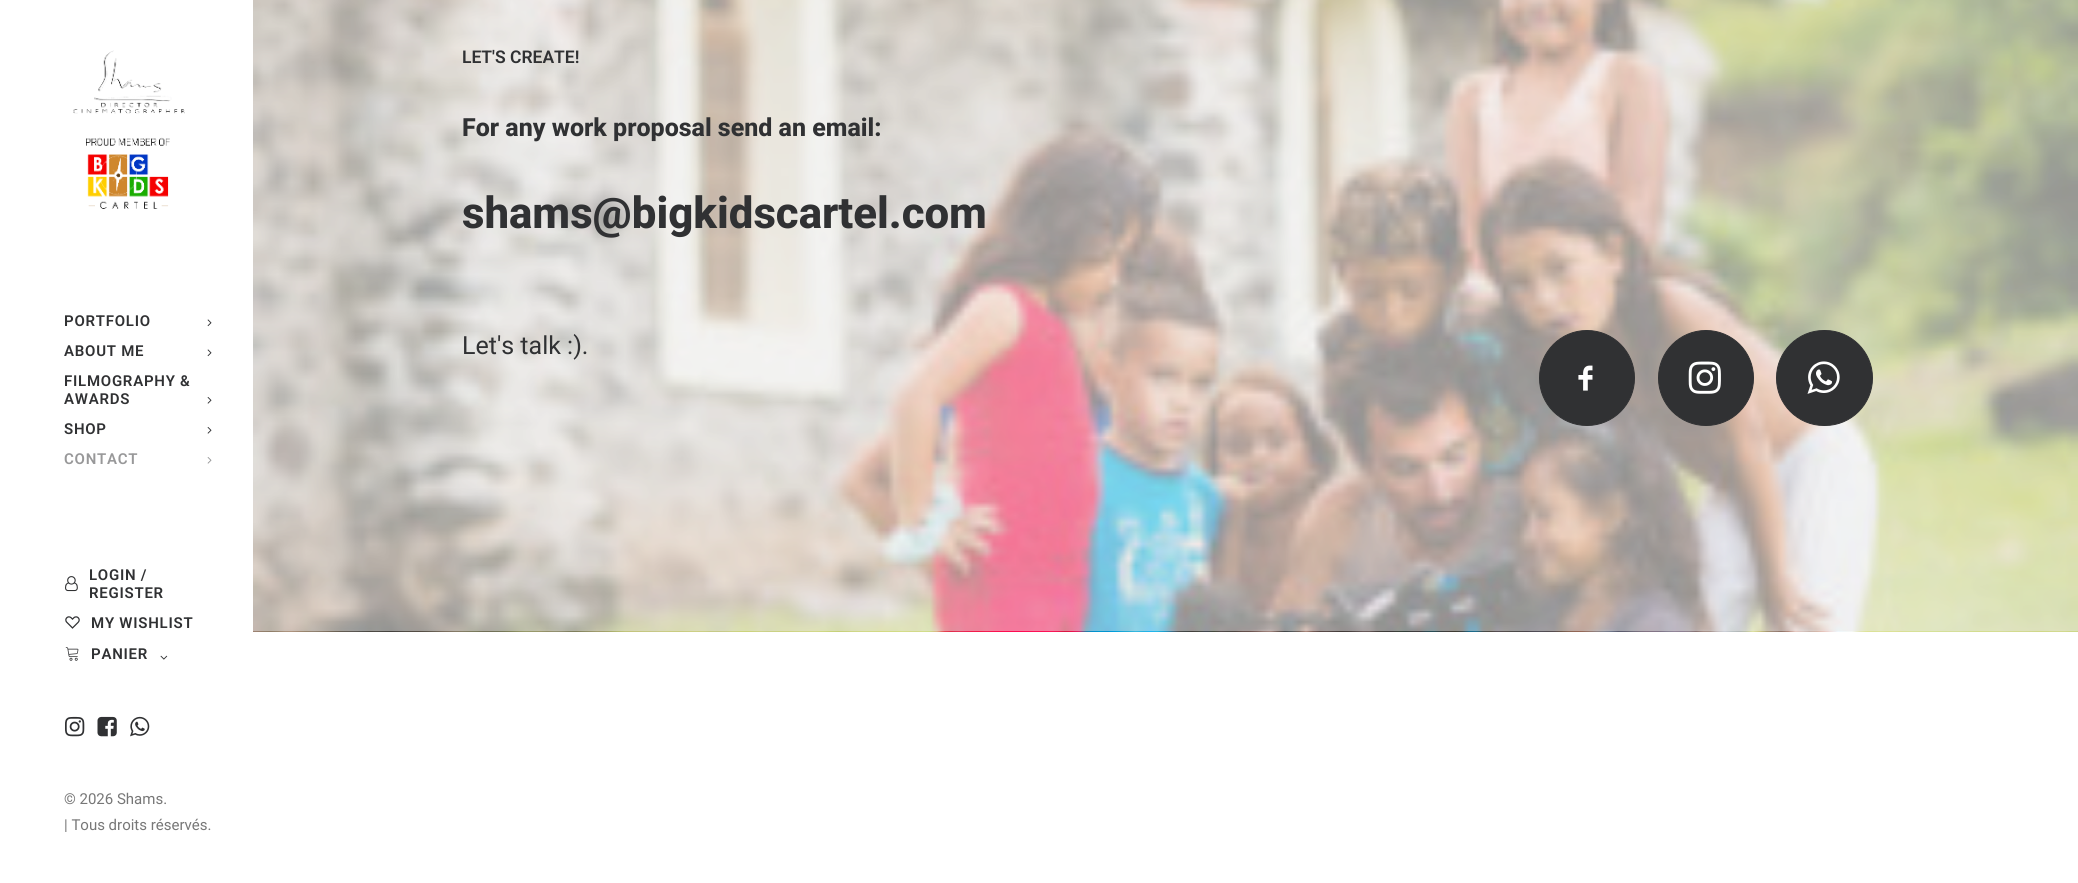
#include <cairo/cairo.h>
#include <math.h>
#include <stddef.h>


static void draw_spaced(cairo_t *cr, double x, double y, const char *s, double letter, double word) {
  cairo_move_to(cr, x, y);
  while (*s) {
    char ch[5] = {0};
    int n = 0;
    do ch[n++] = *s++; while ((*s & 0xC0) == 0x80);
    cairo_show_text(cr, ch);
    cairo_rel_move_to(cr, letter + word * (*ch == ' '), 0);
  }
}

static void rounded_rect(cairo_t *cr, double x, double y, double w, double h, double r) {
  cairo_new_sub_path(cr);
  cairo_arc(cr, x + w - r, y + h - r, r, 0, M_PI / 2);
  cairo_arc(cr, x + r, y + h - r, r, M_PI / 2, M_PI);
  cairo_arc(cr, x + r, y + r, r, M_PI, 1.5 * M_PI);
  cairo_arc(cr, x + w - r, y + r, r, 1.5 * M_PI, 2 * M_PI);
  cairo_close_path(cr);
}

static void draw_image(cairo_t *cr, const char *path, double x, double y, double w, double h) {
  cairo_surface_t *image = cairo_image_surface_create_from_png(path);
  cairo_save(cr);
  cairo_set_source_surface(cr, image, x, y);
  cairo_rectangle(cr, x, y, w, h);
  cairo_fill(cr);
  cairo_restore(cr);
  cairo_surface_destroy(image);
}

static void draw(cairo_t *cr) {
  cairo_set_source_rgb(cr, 1, 1, 1);
  cairo_paint(cr);
  draw_image(cr, "images/1.png", 253, 0, 1825, 632);
  cairo_set_source_rgb(cr, 48 / 255.0, 49 / 255.0, 51 / 255.0);
  cairo_arc(cr, 1587, 378, 47.5, 0, 2 * M_PI);
  cairo_fill_preserve(cr);
  cairo_set_line_width(cr, 1);
  cairo_stroke(cr);
  draw_image(cr, "images/2.png", 1578, 365, 15, 26);
  cairo_arc(cr, 1706, 378, 47.5, 0, 2 * M_PI);
  cairo_fill_preserve(cr);
  cairo_stroke(cr);
  draw_image(cr, "images/3.png", 1688, 361, 33, 33);
  rounded_rect(cr, 1776.5, 330.5, 96, 95, 47.5);
  cairo_fill_preserve(cr);
  cairo_stroke(cr);
  draw_image(cr, "images/4.png", 1807, 361, 33, 33);
  draw_image(cr, "images/5.png", 73, 50, 112, 159);
  draw_image(cr, "images/6.png", 207, 319, 5, 8);
  draw_image(cr, "images/6.png", 207, 349, 5, 8);
  draw_image(cr, "images/7.png", 207, 397, 5, 7);
  draw_image(cr, "images/7.png", 207, 427, 5, 7);
  draw_image(cr, "images/8.png", 207, 457, 5, 7);
  draw_image(cr, "images/9.png", 65, 576, 13, 16);
  draw_image(cr, "images/10.png", 65, 616, 15, 13);
  draw_image(cr, "images/11.png", 65, 647, 14, 14);
  draw_image(cr, "images/12.png", 160, 655, 8, 5);
  draw_image(cr, "images/13.png", 65, 716, 20, 21);
  draw_image(cr, "images/14.png", 97, 716, 20, 21);
  draw_image(cr, "images/15.png", 130, 716, 20, 21);
  cairo_select_font_face(cr, "Roboto SemiBold", CAIRO_FONT_SLANT_NORMAL, CAIRO_FONT_WEIGHT_NORMAL);
  cairo_set_font_size(cr, 17.5);
  cairo_move_to(cr, 462, 63);
  cairo_show_text(cr, "LET'S CREATE!");
  cairo_select_font_face(cr, "Roboto ExtraBold", CAIRO_FONT_SLANT_NORMAL, CAIRO_FONT_WEIGHT_NORMAL);
  cairo_set_font_size(cr, 25);
  cairo_move_to(cr, 462, 136);
  cairo_show_text(cr, "For any work proposal send an email:");
  cairo_set_font_size(cr, 43.75);
  cairo_move_to(cr, 462, 228);
  cairo_show_text(cr, "shams@bigkidscartel.com");
  cairo_select_font_face(cr, "Roboto", CAIRO_FONT_SLANT_NORMAL, CAIRO_FONT_WEIGHT_NORMAL);
  cairo_set_font_size(cr, 25);
  cairo_move_to(cr, 462, 354);
  cairo_show_text(cr, "Let's talk :).");
  cairo_select_font_face(cr, "Roboto SemiBold", CAIRO_FONT_SLANT_NORMAL, CAIRO_FONT_WEIGHT_NORMAL);
  cairo_set_font_size(cr, 15);
  draw_spaced(cr, 64, 326, "PORTFOLIO", 0.75, 0);
  draw_spaced(cr, 64, 356, "ABOUT ME", 0.75, 0);
  draw_spaced(cr, 64, 386, "FILMOGRAPHY &", 0.75, 0);
  draw_spaced(cr, 64, 404, "AWARDS", 0.75, 0);
  draw_spaced(cr, 64, 434, "SHOP", 0.75, 0);
  cairo_set_source_rgb(cr, 152 / 255.0, 152 / 255.0, 153 / 255.0);
  draw_spaced(cr, 64, 464, "CONTACT", 0.75, 0);
  cairo_set_source_rgb(cr, 48 / 255.0, 49 / 255.0, 51 / 255.0);
  draw_spaced(cr, 89, 580, "LOGIN /", 0.75, 0);
  draw_spaced(cr, 89, 598, "REGISTER", 0.75, 0);
  draw_spaced(cr, 91, 628, "MY WISHLIST", 0.75, 0);
  draw_spaced(cr, 91, 659, "PANIER", 0.75, 0);
  cairo_select_font_face(cr, "Roboto", CAIRO_FONT_SLANT_NORMAL, CAIRO_FONT_WEIGHT_NORMAL);
  cairo_set_source_rgb(cr, 119 / 255.0, 119 / 255.0, 119 / 255.0);
  cairo_move_to(cr, 64, 804);
  cairo_show_text(cr, "© 2026 Shams.");
  cairo_move_to(cr, 64, 830);
  cairo_show_text(cr, "| Tous droits réservés.");
}

int main(void) {
  cairo_surface_t *surface = cairo_image_surface_create(CAIRO_FORMAT_RGB24, 2078, 883);
  cairo_t *cr = cairo_create(surface);
  cairo_font_options_t *options = cairo_font_options_create();
  cairo_font_options_set_hint_metrics(options, CAIRO_HINT_METRICS_OFF);
  cairo_font_options_set_hint_style(options, CAIRO_HINT_STYLE_NONE);
  cairo_set_font_options(cr, options);
  cairo_set_miter_limit(cr, 4);
  draw(cr);
  cairo_surface_write_to_png(surface, "out.png");
  cairo_font_options_destroy(options);
  cairo_destroy(cr);
  cairo_surface_destroy(surface);
  return 0;
}
